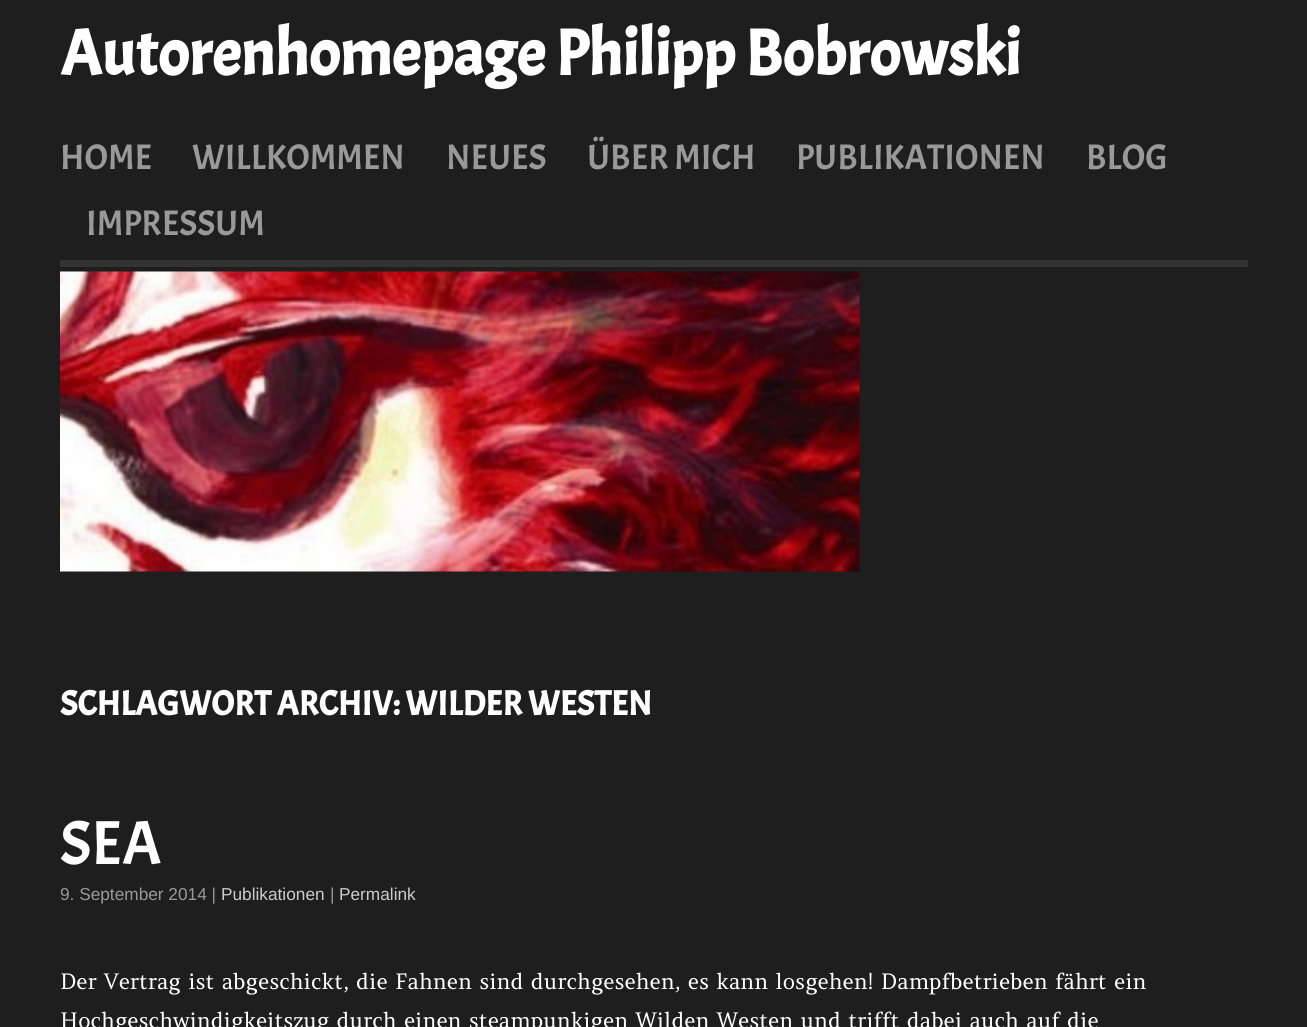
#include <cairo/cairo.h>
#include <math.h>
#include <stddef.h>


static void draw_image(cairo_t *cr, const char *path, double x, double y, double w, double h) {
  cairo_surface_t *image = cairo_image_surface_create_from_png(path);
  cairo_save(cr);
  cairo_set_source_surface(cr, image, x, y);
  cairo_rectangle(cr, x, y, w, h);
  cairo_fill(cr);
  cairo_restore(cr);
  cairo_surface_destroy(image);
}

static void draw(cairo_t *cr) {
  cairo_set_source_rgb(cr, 30 / 255.0, 30 / 255.0, 30 / 255.0);
  cairo_paint(cr);
  cairo_set_source_rgb(cr, 51 / 255.0, 51 / 255.0, 51 / 255.0);
  cairo_rectangle(cr, 60, 260, 1188, 7);
  cairo_fill(cr);
  draw_image(cr, "images/1.png", 60, 271, 800, 301);
  cairo_select_font_face(cr, "Acme", CAIRO_FONT_SLANT_NORMAL, CAIRO_FONT_WEIGHT_BOLD);
  cairo_set_font_size(cr, 64.75);
  cairo_set_source_rgb(cr, 1, 1, 1);
  cairo_move_to(cr, 60, 75);
  cairo_show_text(cr, "Autorenhomepage Philipp Bobrowski");
  cairo_select_font_face(cr, "Acme", CAIRO_FONT_SLANT_NORMAL, CAIRO_FONT_WEIGHT_NORMAL);
  cairo_set_font_size(cr, 35.5);
  cairo_set_source_rgb(cr, 153 / 255.0, 153 / 255.0, 153 / 255.0);
  cairo_move_to(cr, 60, 169);
  cairo_show_text(cr, "HOME");
  cairo_move_to(cr, 192, 169);
  cairo_show_text(cr, "WILLKOMMEN");
  cairo_move_to(cr, 446, 169);
  cairo_show_text(cr, "NEUES");
  cairo_move_to(cr, 587, 169);
  cairo_show_text(cr, "ÜBER MICH");
  cairo_move_to(cr, 796, 169);
  cairo_show_text(cr, "PUBLIKATIONEN");
  cairo_move_to(cr, 1086, 169);
  cairo_show_text(cr, "BLOG");
  cairo_move_to(cr, 86, 235);
  cairo_show_text(cr, "IMPRESSUM");
  cairo_select_font_face(cr, "Acme", CAIRO_FONT_SLANT_NORMAL, CAIRO_FONT_WEIGHT_BOLD);
  cairo_set_font_size(cr, 34.6);
  cairo_set_source_rgb(cr, 1, 1, 1);
  cairo_move_to(cr, 60, 715);
  cairo_show_text(cr, "SCHLAGWORT ARCHIV: WILDER WESTEN");
  cairo_select_font_face(cr, "Acme", CAIRO_FONT_SLANT_NORMAL, CAIRO_FONT_WEIGHT_NORMAL);
  cairo_set_font_size(cr, 62);
  cairo_move_to(cr, 60, 864);
  cairo_show_text(cr, "SEA");
  cairo_select_font_face(cr, "Liberation Sans", CAIRO_FONT_SLANT_NORMAL, CAIRO_FONT_WEIGHT_NORMAL);
  cairo_set_font_size(cr, 17.25);
  cairo_set_source_rgb(cr, 153 / 255.0, 153 / 255.0, 153 / 255.0);
  cairo_move_to(cr, 60, 900);
  cairo_show_text(cr, "9. September 2014 |");
  cairo_set_source_rgb(cr, 204 / 255.0, 204 / 255.0, 204 / 255.0);
  cairo_move_to(cr, 221, 900);
  cairo_show_text(cr, "Publikationen");
  cairo_set_source_rgb(cr, 153 / 255.0, 153 / 255.0, 153 / 255.0);
  cairo_move_to(cr, 330, 900);
  cairo_show_text(cr, "|");
  cairo_set_source_rgb(cr, 204 / 255.0, 204 / 255.0, 204 / 255.0);
  cairo_move_to(cr, 339, 900);
  cairo_show_text(cr, "Permalink");
  cairo_select_font_face(cr, "Amethysta", CAIRO_FONT_SLANT_NORMAL, CAIRO_FONT_WEIGHT_NORMAL);
  cairo_set_font_size(cr, 21.6);
  cairo_set_source_rgb(cr, 1, 1, 1);
  cairo_move_to(cr, 60, 989);
  cairo_show_text(cr, "Der Vertrag ist abgeschickt, die Fahnen sind durchgesehen, es kann losgehen! Dampfbetrieben fährt ein");
  cairo_move_to(cr, 60, 1028);
  cairo_show_text(cr, "Hochgeschwindigkeitszug durch einen steampunkigen Wilden Westen und trifft dabei auch auf die");
}

int main(void) {
  cairo_surface_t *surface = cairo_image_surface_create(CAIRO_FORMAT_RGB24, 1307, 1027);
  cairo_t *cr = cairo_create(surface);
  cairo_font_options_t *options = cairo_font_options_create();
  cairo_font_options_set_hint_metrics(options, CAIRO_HINT_METRICS_OFF);
  cairo_font_options_set_hint_style(options, CAIRO_HINT_STYLE_NONE);
  cairo_set_font_options(cr, options);
  cairo_set_miter_limit(cr, 4);
  draw(cr);
  cairo_surface_write_to_png(surface, "out.png");
  cairo_font_options_destroy(options);
  cairo_destroy(cr);
  cairo_surface_destroy(surface);
  return 0;
}
